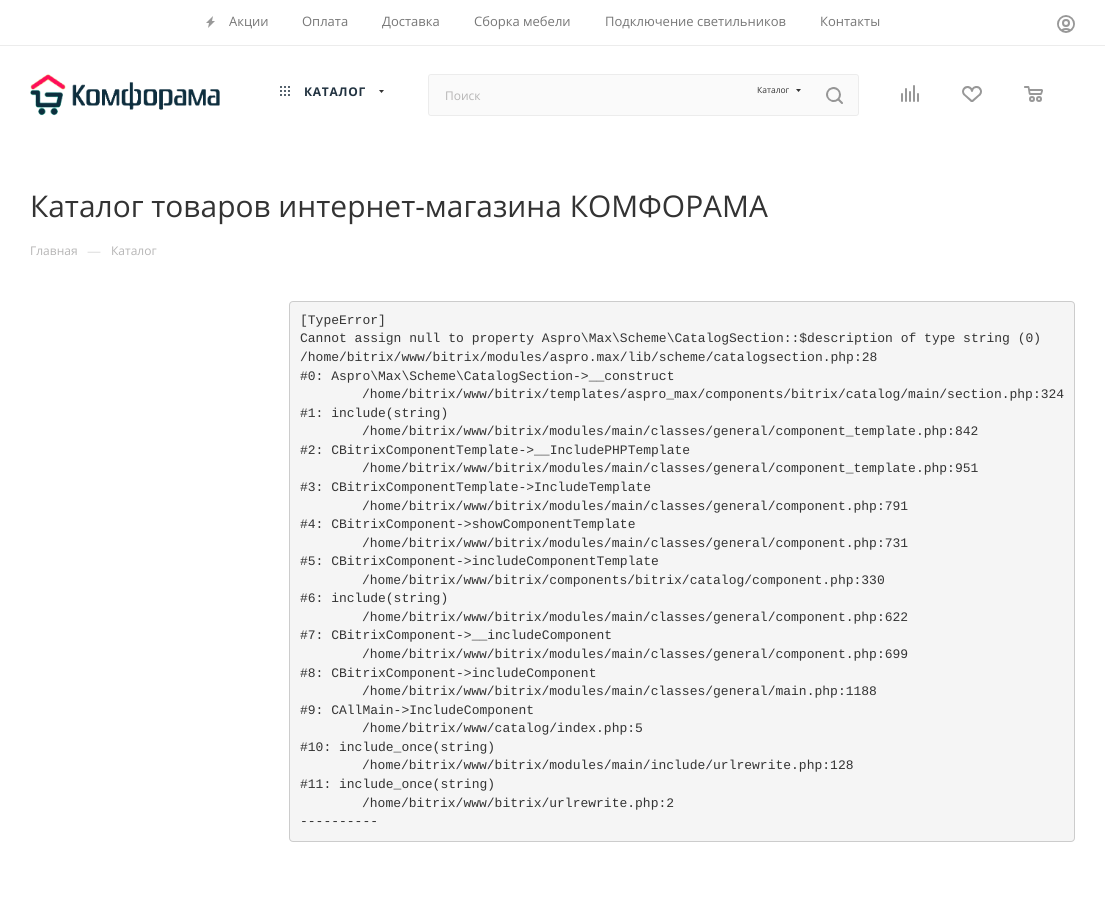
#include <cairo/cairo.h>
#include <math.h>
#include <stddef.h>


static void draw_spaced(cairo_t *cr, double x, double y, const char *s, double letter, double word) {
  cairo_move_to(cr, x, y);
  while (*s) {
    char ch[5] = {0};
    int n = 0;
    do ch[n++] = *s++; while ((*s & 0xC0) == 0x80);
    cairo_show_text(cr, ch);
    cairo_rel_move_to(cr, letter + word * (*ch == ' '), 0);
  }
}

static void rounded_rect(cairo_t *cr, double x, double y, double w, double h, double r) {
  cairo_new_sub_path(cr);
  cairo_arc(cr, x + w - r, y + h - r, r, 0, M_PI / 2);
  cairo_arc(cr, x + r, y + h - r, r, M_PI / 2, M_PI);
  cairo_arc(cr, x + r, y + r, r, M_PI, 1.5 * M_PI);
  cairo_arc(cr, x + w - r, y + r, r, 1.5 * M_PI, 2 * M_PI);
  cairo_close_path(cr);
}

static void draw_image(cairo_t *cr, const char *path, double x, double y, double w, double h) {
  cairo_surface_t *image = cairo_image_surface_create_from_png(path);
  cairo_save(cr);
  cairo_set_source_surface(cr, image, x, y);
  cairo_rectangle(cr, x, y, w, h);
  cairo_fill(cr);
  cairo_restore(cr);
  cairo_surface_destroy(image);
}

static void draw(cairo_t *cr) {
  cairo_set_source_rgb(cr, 1, 1, 1);
  cairo_paint(cr);
  cairo_set_source_rgb(cr, 236 / 255.0, 236 / 255.0, 236 / 255.0);
  cairo_rectangle(cr, 0, 45, 1105, 1);
  cairo_fill(cr);
  draw_image(cr, "images/1.png", 206, 16, 9, 12);
  draw_image(cr, "images/2.png", 1057, 15, 18, 18);
  draw_image(cr, "images/3.png", 30, 74, 190, 42);
  draw_image(cr, "images/4.png", 280, 86, 10, 10);
  draw_image(cr, "images/5.png", 379, 90, 5, 3);
  cairo_set_source_rgb(cr, 250 / 255.0, 250 / 255.0, 250 / 255.0);
  rounded_rect(cr, 428.5, 74.5, 430, 41, 2.5);
  cairo_fill_preserve(cr);
  cairo_set_source_rgb(cr, 236 / 255.0, 236 / 255.0, 236 / 255.0);
  cairo_set_line_width(cr, 1);
  cairo_stroke(cr);
  cairo_set_source_rgb(cr, 51 / 255.0, 51 / 255.0, 51 / 255.0);
  cairo_set_fill_rule(cr, CAIRO_FILL_RULE_EVEN_ODD);
  cairo_new_path(cr);
  cairo_move_to(cr, 796, 89);
  cairo_line_to(cr, 801, 89);
  cairo_line_to(cr, 798.5, 92);
  cairo_close_path(cr);
  cairo_fill(cr);
  draw_image(cr, "images/6.png", 826, 87, 17, 17);
  draw_image(cr, "images/7.png", 901, 85, 18, 17);
  draw_image(cr, "images/8.png", 962, 86, 20, 16);
  draw_image(cr, "images/9.png", 1024, 86, 19, 16);
  cairo_set_source_rgb(cr, 245 / 255.0, 245 / 255.0, 245 / 255.0);
  rounded_rect(cr, 289.5, 301.5, 785, 540, 3.5);
  cairo_fill_preserve(cr);
  cairo_set_source_rgb(cr, 204 / 255.0, 204 / 255.0, 204 / 255.0);
  cairo_stroke(cr);
  cairo_select_font_face(cr, "Open Sans", CAIRO_FONT_SLANT_NORMAL, CAIRO_FONT_WEIGHT_NORMAL);
  cairo_set_font_size(cr, 13);
  cairo_set_source_rgb(cr, 119 / 255.0, 119 / 255.0, 119 / 255.0);
  cairo_move_to(cr, 229, 26);
  cairo_show_text(cr, "Акции");
  cairo_move_to(cr, 302, 26);
  cairo_show_text(cr, "Оплата");
  cairo_move_to(cr, 382, 26);
  cairo_show_text(cr, "Доставка");
  cairo_move_to(cr, 474, 26);
  cairo_show_text(cr, "Сборка мебели");
  cairo_move_to(cr, 605, 26);
  cairo_show_text(cr, "Подключение светильников");
  cairo_move_to(cr, 820, 26);
  cairo_show_text(cr, "Контакты");
  cairo_select_font_face(cr, "Open Sans", CAIRO_FONT_SLANT_NORMAL, CAIRO_FONT_WEIGHT_BOLD);
  cairo_set_font_size(cr, 12);
  cairo_set_source_rgb(cr, 33 / 255.0, 50 / 255.0, 64 / 255.0);
  draw_spaced(cr, 304, 96, "КАТАЛОГ", 0.75, 0);
  cairo_select_font_face(cr, "Open Sans", CAIRO_FONT_SLANT_NORMAL, CAIRO_FONT_WEIGHT_NORMAL);
  cairo_set_font_size(cr, 8.5);
  cairo_set_source_rgb(cr, 51 / 255.0, 51 / 255.0, 51 / 255.0);
  cairo_move_to(cr, 757, 93);
  cairo_show_text(cr, "Каталог");
  cairo_set_font_size(cr, 12);
  cairo_set_source_rgb(cr, 182 / 255.0, 181 / 255.0, 181 / 255.0);
  cairo_move_to(cr, 445, 100);
  cairo_show_text(cr, "Поиск");
  cairo_set_font_size(cr, 29.9);
  cairo_set_source_rgb(cr, 51 / 255.0, 51 / 255.0, 51 / 255.0);
  cairo_move_to(cr, 30, 217);
  cairo_show_text(cr, "Каталог товаров интернет-магазина КОМФОРАМА");
  cairo_set_font_size(cr, 12);
  cairo_set_source_rgb(cr, 182 / 255.0, 181 / 255.0, 181 / 255.0);
  cairo_move_to(cr, 30, 255);
  cairo_show_text(cr, "Главная");
  cairo_set_font_size(cr, 14);
  cairo_set_source_rgb(cr, 221 / 255.0, 221 / 255.0, 221 / 255.0);
  cairo_move_to(cr, 87, 256);
  cairo_show_text(cr, "—");
  cairo_set_font_size(cr, 12);
  cairo_set_source_rgb(cr, 182 / 255.0, 181 / 255.0, 181 / 255.0);
  cairo_move_to(cr, 111, 255);
  cairo_show_text(cr, "Каталог");
  cairo_select_font_face(cr, "Liberation Mono", CAIRO_FONT_SLANT_NORMAL, CAIRO_FONT_WEIGHT_NORMAL);
  cairo_set_font_size(cr, 13);
  cairo_set_source_rgb(cr, 51 / 255.0, 51 / 255.0, 51 / 255.0);
  cairo_move_to(cr, 300, 324);
  cairo_show_text(cr, "[TypeError]");
  cairo_move_to(cr, 300, 342);
  cairo_show_text(cr, "Cannot assign null to property Aspro\\Max\\Scheme\\CatalogSection::$description of type string (0)");
  cairo_move_to(cr, 300, 361);
  cairo_show_text(cr, "/home/bitrix/www/bitrix/modules/aspro.max/lib/scheme/catalogsection.php:28");
  cairo_move_to(cr, 300, 380);
  cairo_show_text(cr, "#0: Aspro\\Max\\Scheme\\CatalogSection->__construct");
  cairo_move_to(cr, 362, 398);
  cairo_show_text(cr, "/home/bitrix/www/bitrix/templates/aspro_max/components/bitrix/catalog/main/section.php:324");
  cairo_move_to(cr, 300, 417);
  cairo_show_text(cr, "#1: include(string)");
  cairo_move_to(cr, 362, 435);
  cairo_show_text(cr, "/home/bitrix/www/bitrix/modules/main/classes/general/component_template.php:842");
  cairo_move_to(cr, 300, 454);
  cairo_show_text(cr, "#2: CBitrixComponentTemplate->__IncludePHPTemplate");
  cairo_move_to(cr, 362, 472);
  cairo_show_text(cr, "/home/bitrix/www/bitrix/modules/main/classes/general/component_template.php:951");
  cairo_move_to(cr, 300, 491);
  cairo_show_text(cr, "#3: CBitrixComponentTemplate->IncludeTemplate");
  cairo_move_to(cr, 362, 510);
  cairo_show_text(cr, "/home/bitrix/www/bitrix/modules/main/classes/general/component.php:791");
  cairo_move_to(cr, 300, 528);
  cairo_show_text(cr, "#4: CBitrixComponent->showComponentTemplate");
  cairo_move_to(cr, 362, 547);
  cairo_show_text(cr, "/home/bitrix/www/bitrix/modules/main/classes/general/component.php:731");
  cairo_move_to(cr, 300, 565);
  cairo_show_text(cr, "#5: CBitrixComponent->includeComponentTemplate");
  cairo_move_to(cr, 362, 584);
  cairo_show_text(cr, "/home/bitrix/www/bitrix/components/bitrix/catalog/component.php:330");
  cairo_move_to(cr, 300, 602);
  cairo_show_text(cr, "#6: include(string)");
  cairo_move_to(cr, 362, 621);
  cairo_show_text(cr, "/home/bitrix/www/bitrix/modules/main/classes/general/component.php:622");
  cairo_move_to(cr, 300, 639);
  cairo_show_text(cr, "#7: CBitrixComponent->__includeComponent");
  cairo_move_to(cr, 362, 658);
  cairo_show_text(cr, "/home/bitrix/www/bitrix/modules/main/classes/general/component.php:699");
  cairo_move_to(cr, 300, 677);
  cairo_show_text(cr, "#8: CBitrixComponent->includeComponent");
  cairo_move_to(cr, 362, 695);
  cairo_show_text(cr, "/home/bitrix/www/bitrix/modules/main/classes/general/main.php:1188");
  cairo_move_to(cr, 300, 714);
  cairo_show_text(cr, "#9: CAllMain->IncludeComponent");
  cairo_move_to(cr, 362, 732);
  cairo_show_text(cr, "/home/bitrix/www/catalog/index.php:5");
  cairo_move_to(cr, 300, 751);
  cairo_show_text(cr, "#10: include_once(string)");
  cairo_move_to(cr, 362, 769);
  cairo_show_text(cr, "/home/bitrix/www/bitrix/modules/main/include/urlrewrite.php:128");
  cairo_move_to(cr, 300, 788);
  cairo_show_text(cr, "#11: include_once(string)");
  cairo_move_to(cr, 362, 807);
  cairo_show_text(cr, "/home/bitrix/www/bitrix/urlrewrite.php:2");
  cairo_move_to(cr, 300, 825);
  cairo_show_text(cr, "----------");
}

int main(void) {
  cairo_surface_t *surface = cairo_image_surface_create(CAIRO_FORMAT_RGB24, 1105, 923);
  cairo_t *cr = cairo_create(surface);
  cairo_font_options_t *options = cairo_font_options_create();
  cairo_font_options_set_hint_metrics(options, CAIRO_HINT_METRICS_OFF);
  cairo_font_options_set_hint_style(options, CAIRO_HINT_STYLE_NONE);
  cairo_set_font_options(cr, options);
  cairo_set_miter_limit(cr, 4);
  draw(cr);
  cairo_surface_write_to_png(surface, "out.png");
  cairo_font_options_destroy(options);
  cairo_destroy(cr);
  cairo_surface_destroy(surface);
  return 0;
}
